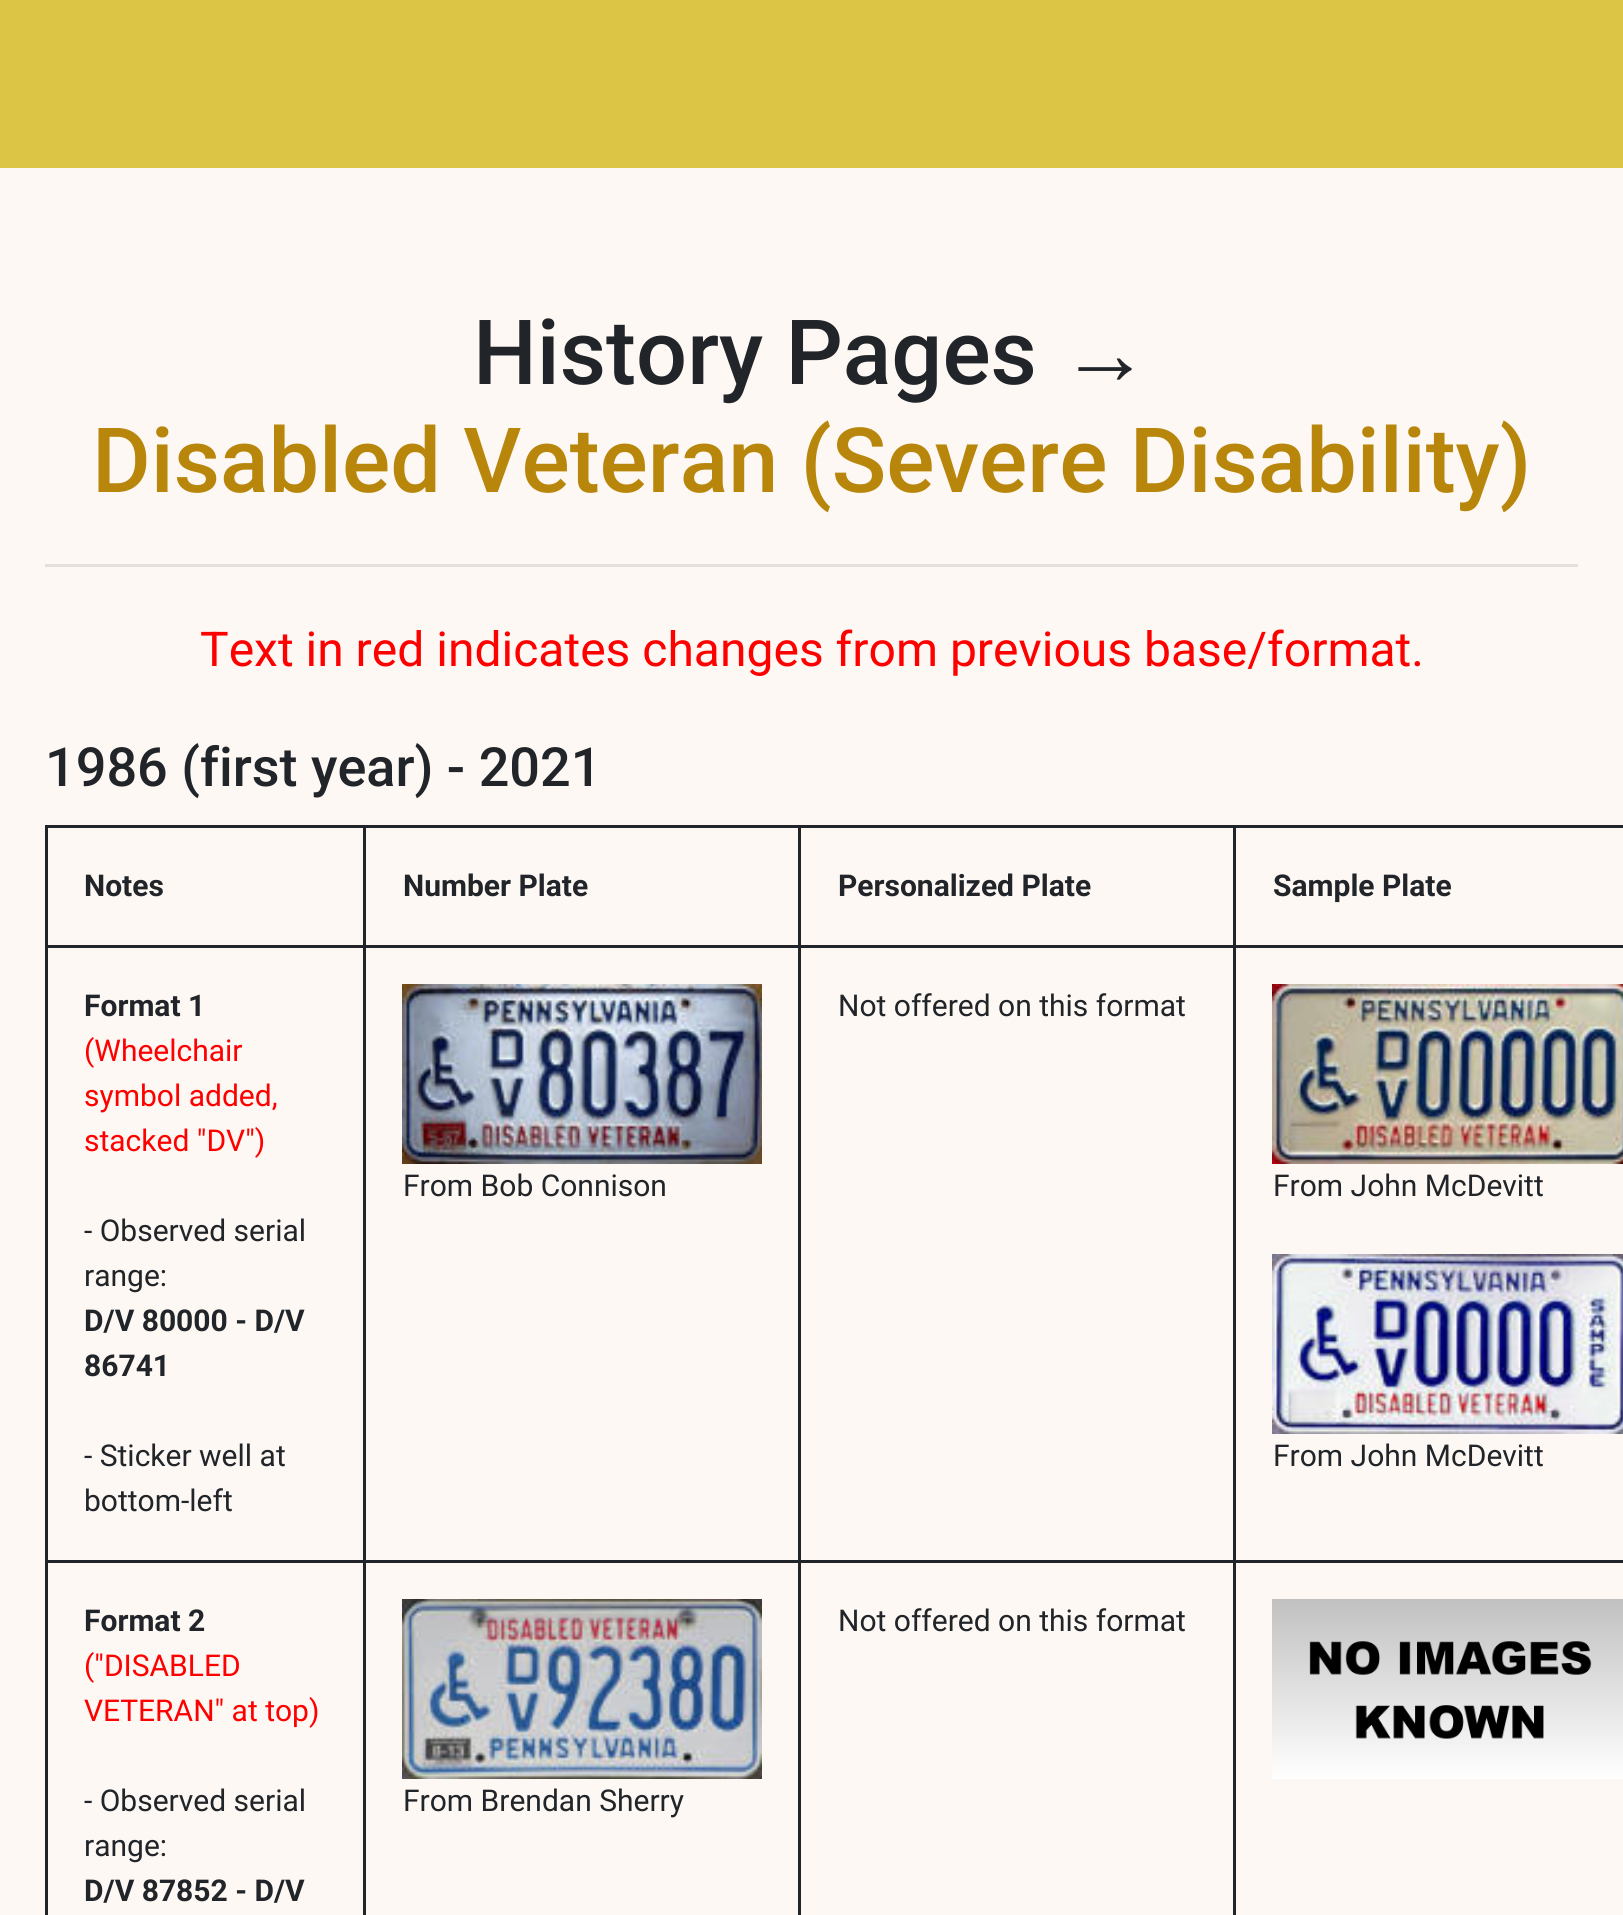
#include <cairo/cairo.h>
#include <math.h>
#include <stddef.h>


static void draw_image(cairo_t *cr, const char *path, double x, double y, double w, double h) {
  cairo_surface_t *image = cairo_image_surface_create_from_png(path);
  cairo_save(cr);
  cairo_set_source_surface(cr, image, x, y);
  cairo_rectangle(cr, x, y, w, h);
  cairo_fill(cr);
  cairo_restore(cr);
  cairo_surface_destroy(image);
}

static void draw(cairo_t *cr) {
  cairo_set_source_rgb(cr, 253 / 255.0, 248 / 255.0, 244 / 255.0);
  cairo_paint(cr);
  cairo_set_source_rgb(cr, 220 / 255.0, 196 / 255.0, 69 / 255.0);
  cairo_rectangle(cr, 0, 0, 1623, 168);
  cairo_fill(cr);
  cairo_set_source_rgb(cr, 228 / 255.0, 223 / 255.0, 220 / 255.0);
  cairo_rectangle(cr, 45, 564, 1533, 3);
  cairo_fill(cr);
  cairo_set_source_rgb(cr, 33 / 255.0, 37 / 255.0, 41 / 255.0);
  cairo_rectangle(cr, 1233, 825, 390, 3);
  cairo_fill(cr);
  cairo_rectangle(cr, 1233, 945, 390, 3);
  cairo_fill(cr);
  cairo_rectangle(cr, 1233, 1560, 390, 3);
  cairo_fill(cr);
  cairo_rectangle(cr, 1233, 1560, 3, 355);
  cairo_fill(cr);
  cairo_rectangle(cr, 798, 1560, 438, 3);
  cairo_fill(cr);
  cairo_rectangle(cr, 1233, 945, 3, 618);
  cairo_fill(cr);
  cairo_rectangle(cr, 798, 945, 438, 3);
  cairo_fill(cr);
  cairo_rectangle(cr, 1233, 825, 3, 123);
  cairo_fill(cr);
  cairo_rectangle(cr, 798, 825, 438, 3);
  cairo_fill(cr);
  cairo_rectangle(cr, 798, 1560, 3, 355);
  cairo_fill(cr);
  cairo_rectangle(cr, 363, 1560, 438, 3);
  cairo_fill(cr);
  cairo_rectangle(cr, 798, 945, 3, 618);
  cairo_fill(cr);
  cairo_rectangle(cr, 363, 945, 438, 3);
  cairo_fill(cr);
  cairo_rectangle(cr, 798, 825, 3, 123);
  cairo_fill(cr);
  cairo_rectangle(cr, 363, 825, 438, 3);
  cairo_fill(cr);
  cairo_rectangle(cr, 363, 1560, 3, 355);
  cairo_fill(cr);
  cairo_rectangle(cr, 45, 1560, 321, 3);
  cairo_fill(cr);
  cairo_rectangle(cr, 363, 945, 3, 618);
  cairo_fill(cr);
  cairo_rectangle(cr, 45, 945, 321, 3);
  cairo_fill(cr);
  cairo_rectangle(cr, 363, 825, 3, 123);
  cairo_fill(cr);
  cairo_rectangle(cr, 45, 825, 321, 3);
  cairo_fill(cr);
  cairo_rectangle(cr, 45, 1560, 3, 355);
  cairo_fill(cr);
  cairo_rectangle(cr, 45, 945, 3, 618);
  cairo_fill(cr);
  cairo_rectangle(cr, 45, 825, 3, 123);
  cairo_fill(cr);
  draw_image(cr, "images/1.png", 402, 984, 360, 180);
  draw_image(cr, "images/2.png", 1272, 984, 351, 180);
  draw_image(cr, "images/3.png", 1272, 1254, 351, 180);
  draw_image(cr, "images/4.png", 402, 1599, 360, 180);
  draw_image(cr, "images/5.png", 1272, 1599, 351, 180);
  cairo_select_font_face(cr, "Roboto Medium", CAIRO_FONT_SLANT_NORMAL, CAIRO_FONT_WEIGHT_NORMAL);
  cairo_set_font_size(cr, 90);
  cairo_move_to(cr, 473, 384);
  cairo_show_text(cr, "History Pages");
  cairo_select_font_face(cr, "Liberation Sans", CAIRO_FONT_SLANT_NORMAL, CAIRO_FONT_WEIGHT_NORMAL);
  cairo_move_to(cr, 1060, 384);
  cairo_show_text(cr, "→");
  cairo_select_font_face(cr, "Roboto Medium", CAIRO_FONT_SLANT_NORMAL, CAIRO_FONT_WEIGHT_NORMAL);
  cairo_set_source_rgb(cr, 184 / 255.0, 134 / 255.0, 11 / 255.0);
  cairo_move_to(cr, 92, 492);
  cairo_show_text(cr, "Disabled Veteran (Severe Disability)");
  cairo_select_font_face(cr, "Roboto", CAIRO_FONT_SLANT_NORMAL, CAIRO_FONT_WEIGHT_NORMAL);
  cairo_set_font_size(cr, 48);
  cairo_set_source_rgb(cr, 1, 0, 0);
  cairo_move_to(cr, 200, 666);
  cairo_show_text(cr, "Text in red indicates changes from previous base/format.");
  cairo_select_font_face(cr, "Roboto Medium", CAIRO_FONT_SLANT_NORMAL, CAIRO_FONT_WEIGHT_NORMAL);
  cairo_set_font_size(cr, 54);
  cairo_set_source_rgb(cr, 33 / 255.0, 37 / 255.0, 41 / 255.0);
  cairo_move_to(cr, 45, 786);
  cairo_show_text(cr, "1986 (first year) - 2021");
  cairo_select_font_face(cr, "Roboto", CAIRO_FONT_SLANT_NORMAL, CAIRO_FONT_WEIGHT_BOLD);
  cairo_set_font_size(cr, 30);
  cairo_move_to(cr, 84, 896);
  cairo_show_text(cr, "Notes");
  cairo_move_to(cr, 403, 896);
  cairo_show_text(cr, "Number Plate");
  cairo_move_to(cr, 838, 896);
  cairo_show_text(cr, "Personalized Plate");
  cairo_move_to(cr, 1273, 896);
  cairo_show_text(cr, "Sample Plate");
  cairo_move_to(cr, 84, 1016);
  cairo_show_text(cr, "Format 1");
  cairo_select_font_face(cr, "Roboto", CAIRO_FONT_SLANT_NORMAL, CAIRO_FONT_WEIGHT_NORMAL);
  cairo_set_source_rgb(cr, 1, 0, 0);
  cairo_move_to(cr, 84, 1061);
  cairo_show_text(cr, "(Wheelchair");
  cairo_move_to(cr, 84, 1106);
  cairo_show_text(cr, "symbol added,");
  cairo_move_to(cr, 84, 1151);
  cairo_show_text(cr, "stacked \"DV\")");
  cairo_set_source_rgb(cr, 33 / 255.0, 37 / 255.0, 41 / 255.0);
  cairo_move_to(cr, 84, 1241);
  cairo_show_text(cr, "- Observed serial");
  cairo_move_to(cr, 84, 1286);
  cairo_show_text(cr, "range:");
  cairo_select_font_face(cr, "Roboto", CAIRO_FONT_SLANT_NORMAL, CAIRO_FONT_WEIGHT_BOLD);
  cairo_move_to(cr, 84, 1331);
  cairo_show_text(cr, "D/V 80000 - D/V");
  cairo_move_to(cr, 84, 1376);
  cairo_show_text(cr, "86741");
  cairo_select_font_face(cr, "Roboto", CAIRO_FONT_SLANT_NORMAL, CAIRO_FONT_WEIGHT_NORMAL);
  cairo_move_to(cr, 84, 1466);
  cairo_show_text(cr, "- Sticker well at");
  cairo_move_to(cr, 84, 1511);
  cairo_show_text(cr, "bottom-left");
  cairo_move_to(cr, 403, 1196);
  cairo_show_text(cr, "From Bob Connison");
  cairo_move_to(cr, 838, 1016);
  cairo_show_text(cr, "Not offered on this format");
  cairo_move_to(cr, 1273, 1196);
  cairo_show_text(cr, "From John McDevitt");
  cairo_move_to(cr, 1273, 1466);
  cairo_show_text(cr, "From John McDevitt");
  cairo_select_font_face(cr, "Roboto", CAIRO_FONT_SLANT_NORMAL, CAIRO_FONT_WEIGHT_BOLD);
  cairo_move_to(cr, 84, 1631);
  cairo_show_text(cr, "Format 2");
  cairo_select_font_face(cr, "Roboto", CAIRO_FONT_SLANT_NORMAL, CAIRO_FONT_WEIGHT_NORMAL);
  cairo_set_source_rgb(cr, 1, 0, 0);
  cairo_move_to(cr, 84, 1676);
  cairo_show_text(cr, "(\"DISABLED");
  cairo_move_to(cr, 84, 1721);
  cairo_show_text(cr, "VETERAN\" at top)");
  cairo_set_source_rgb(cr, 33 / 255.0, 37 / 255.0, 41 / 255.0);
  cairo_move_to(cr, 84, 1811);
  cairo_show_text(cr, "- Observed serial");
  cairo_move_to(cr, 84, 1856);
  cairo_show_text(cr, "range:");
  cairo_select_font_face(cr, "Roboto", CAIRO_FONT_SLANT_NORMAL, CAIRO_FONT_WEIGHT_BOLD);
  cairo_move_to(cr, 84, 1901);
  cairo_show_text(cr, "D/V 87852 - D/V");
  cairo_select_font_face(cr, "Roboto", CAIRO_FONT_SLANT_NORMAL, CAIRO_FONT_WEIGHT_NORMAL);
  cairo_move_to(cr, 403, 1811);
  cairo_show_text(cr, "From Brendan Sherry");
  cairo_move_to(cr, 838, 1631);
  cairo_show_text(cr, "Not offered on this format");
}

int main(void) {
  cairo_surface_t *surface = cairo_image_surface_create(CAIRO_FORMAT_RGB24, 1623, 1915);
  cairo_t *cr = cairo_create(surface);
  cairo_font_options_t *options = cairo_font_options_create();
  cairo_font_options_set_hint_metrics(options, CAIRO_HINT_METRICS_OFF);
  cairo_font_options_set_hint_style(options, CAIRO_HINT_STYLE_NONE);
  cairo_set_font_options(cr, options);
  cairo_set_miter_limit(cr, 4);
  draw(cr);
  cairo_surface_write_to_png(surface, "out.png");
  cairo_font_options_destroy(options);
  cairo_destroy(cr);
  cairo_surface_destroy(surface);
  return 0;
}
